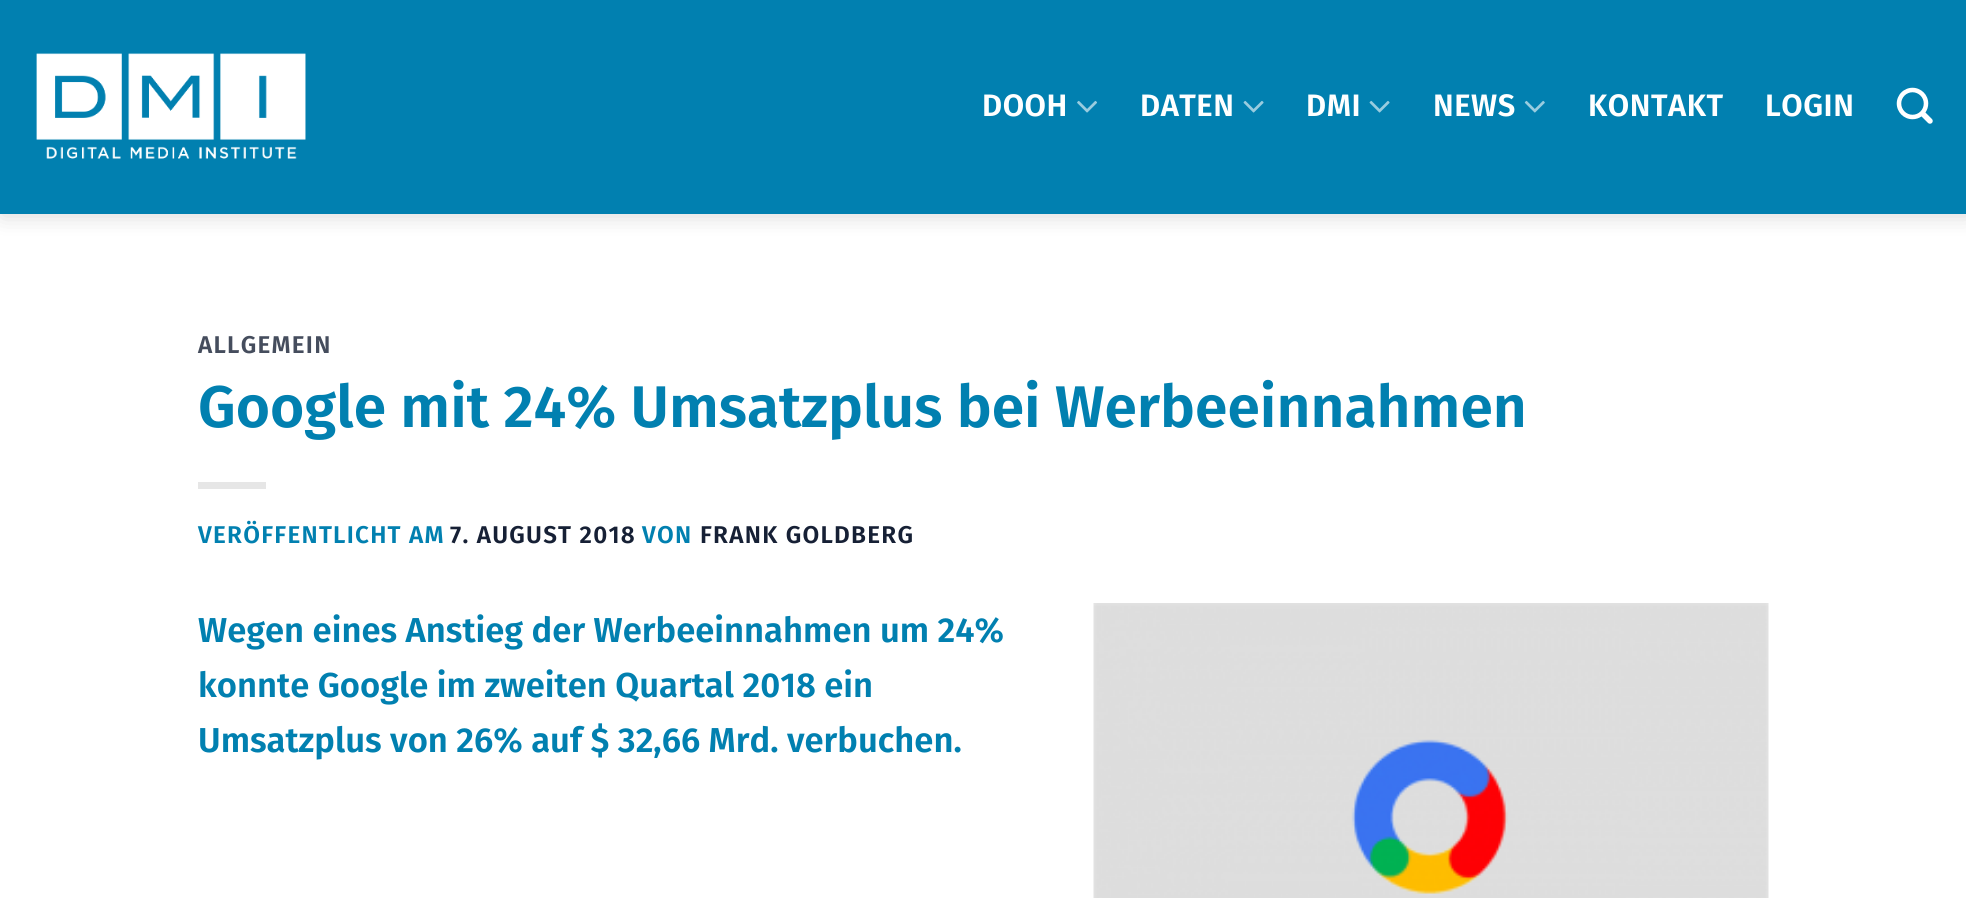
#include <cairo/cairo.h>
#include <math.h>
#include <stddef.h>


static void draw_spaced(cairo_t *cr, double x, double y, const char *s, double letter, double word) {
  cairo_move_to(cr, x, y);
  while (*s) {
    char ch[5] = {0};
    int n = 0;
    do ch[n++] = *s++; while ((*s & 0xC0) == 0x80);
    cairo_show_text(cr, ch);
    cairo_rel_move_to(cr, letter + word * (*ch == ' '), 0);
  }
}

static void rounded_rect(cairo_t *cr, double x, double y, double w, double h, double r) {
  cairo_new_sub_path(cr);
  cairo_arc(cr, x + w - r, y + h - r, r, 0, M_PI / 2);
  cairo_arc(cr, x + r, y + h - r, r, M_PI / 2, M_PI);
  cairo_arc(cr, x + r, y + r, r, M_PI, 1.5 * M_PI);
  cairo_arc(cr, x + w - r, y + r, r, 1.5 * M_PI, 2 * M_PI);
  cairo_close_path(cr);
}

static void draw_shadow(cairo_t *cr, double x, double y, double w, double h, double r, double blur, double alpha) {
  cairo_push_group_with_content(cr, CAIRO_CONTENT_ALPHA);
  cairo_set_operator(cr, CAIRO_OPERATOR_SOURCE);
  for (int i = 15; i >= -15 && fmin(w, h) + blur * i / 3 > 0; i -= 2) {
    double e = blur * i / 6;
    cairo_set_source_rgba(cr, 0, 0, 0, alpha * erfc((i - 1) / 8.5) / 2);
    rounded_rect(cr, x - e, y - e, w + 2 * e, h + 2 * e, fmax(0, fmin(r + e + blur * .6, fmin(w, h) / 2 + e)));
    cairo_fill(cr);
  }
  cairo_pattern_t *soft = cairo_pop_group(cr);
  cairo_mask(cr, soft);
  cairo_pattern_destroy(soft);
}

static void draw_image(cairo_t *cr, const char *path, double x, double y, double w, double h) {
  cairo_surface_t *image = cairo_image_surface_create_from_png(path);
  cairo_save(cr);
  cairo_set_source_surface(cr, image, x, y);
  cairo_rectangle(cr, x, y, w, h);
  cairo_fill(cr);
  cairo_restore(cr);
  cairo_surface_destroy(image);
}

static void draw(cairo_t *cr) {
  cairo_set_source_rgb(cr, 1, 1, 1);
  cairo_paint(cr);
  cairo_set_source_rgb(cr, 0, 0, 0);
  draw_shadow(cr, 2, 2, 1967, 214, 0, 11, 0.15);
  cairo_set_source_rgb(cr, 1 / 255.0, 128 / 255.0, 176 / 255.0);
  cairo_rectangle(cr, 0, 0, 1966, 214);
  cairo_fill(cr);
  draw_image(cr, "images/1.png", 36, 53, 270, 106);
  draw_image(cr, "images/2.png", 1077, 100, 20, 13);
  draw_image(cr, "images/3.png", 1243, 100, 21, 13);
  draw_image(cr, "images/3.png", 1369, 100, 21, 13);
  draw_image(cr, "images/4.png", 1524, 100, 21, 13);
  draw_image(cr, "images/5.png", 1896, 87, 37, 37);
  cairo_set_source_rgb(cr, 230 / 255.0, 230 / 255.0, 230 / 255.0);
  cairo_rectangle(cr, 198, 482, 68, 7);
  cairo_fill(cr);
  draw_image(cr, "images/6.png", 1093, 603, 676, 295);
  cairo_select_font_face(cr, "Fira Sans SemiBold", CAIRO_FONT_SLANT_NORMAL, CAIRO_FONT_WEIGHT_NORMAL);
  cairo_set_font_size(cr, 31);
  cairo_set_source_rgb(cr, 1, 1, 1);
  draw_spaced(cr, 982, 116, "DOOH", 0.5, 0);
  draw_spaced(cr, 1140, 116, "DATEN", 0.5, 0);
  draw_spaced(cr, 1306, 116, "DMI", 0.5, 0);
  draw_spaced(cr, 1433, 116, "NEWS", 0.5, 0);
  draw_spaced(cr, 1588, 116, "KONTAKT", 0.5, 0);
  draw_spaced(cr, 1765, 116, "LOGIN", 0.5, 0);
  cairo_set_font_size(cr, 24.25);
  cairo_set_source_rgb(cr, 69 / 255.0, 77 / 255.0, 93 / 255.0);
  draw_spaced(cr, 198, 353, "ALLGEMEIN", 1.25, 0);
  cairo_set_font_size(cr, 58.75);
  cairo_set_source_rgb(cr, 1 / 255.0, 128 / 255.0, 176 / 255.0);
  cairo_move_to(cr, 198, 427);
  cairo_show_text(cr, "Google mit 24% Umsatzplus bei Werbeeinnahmen");
  cairo_set_font_size(cr, 24.25);
  draw_spaced(cr, 198, 543, "VERÖFFENTLICHT AM", 1.25, 0);
  cairo_set_source_rgb(cr, 22 / 255.0, 32 / 255.0, 53 / 255.0);
  draw_spaced(cr, 450, 543, "7. AUGUST 2018", 1.25, 0);
  cairo_set_source_rgb(cr, 1 / 255.0, 128 / 255.0, 176 / 255.0);
  draw_spaced(cr, 642, 543, "VON", 1.25, 0);
  cairo_set_source_rgb(cr, 22 / 255.0, 32 / 255.0, 53 / 255.0);
  draw_spaced(cr, 700, 543, "FRANK GOLDBERG", 1.25, 0);
  cairo_set_font_size(cr, 34.6);
  cairo_set_source_rgb(cr, 1 / 255.0, 128 / 255.0, 176 / 255.0);
  cairo_move_to(cr, 198, 642);
  cairo_show_text(cr, "Wegen eines Anstieg der Werbeeinnahmen um 24%");
  cairo_move_to(cr, 198, 697);
  cairo_show_text(cr, "konnte Google im zweiten Quartal 2018 ein");
  cairo_move_to(cr, 198, 752);
  cairo_show_text(cr, "Umsatzplus von 26% auf $ 32,66 Mrd. verbuchen.");
}

int main(void) {
  cairo_surface_t *surface = cairo_image_surface_create(CAIRO_FORMAT_RGB24, 1966, 898);
  cairo_t *cr = cairo_create(surface);
  cairo_font_options_t *options = cairo_font_options_create();
  cairo_font_options_set_hint_metrics(options, CAIRO_HINT_METRICS_OFF);
  cairo_font_options_set_hint_style(options, CAIRO_HINT_STYLE_NONE);
  cairo_set_font_options(cr, options);
  cairo_set_miter_limit(cr, 4);
  draw(cr);
  cairo_surface_write_to_png(surface, "out.png");
  cairo_font_options_destroy(options);
  cairo_destroy(cr);
  cairo_surface_destroy(surface);
  return 0;
}
